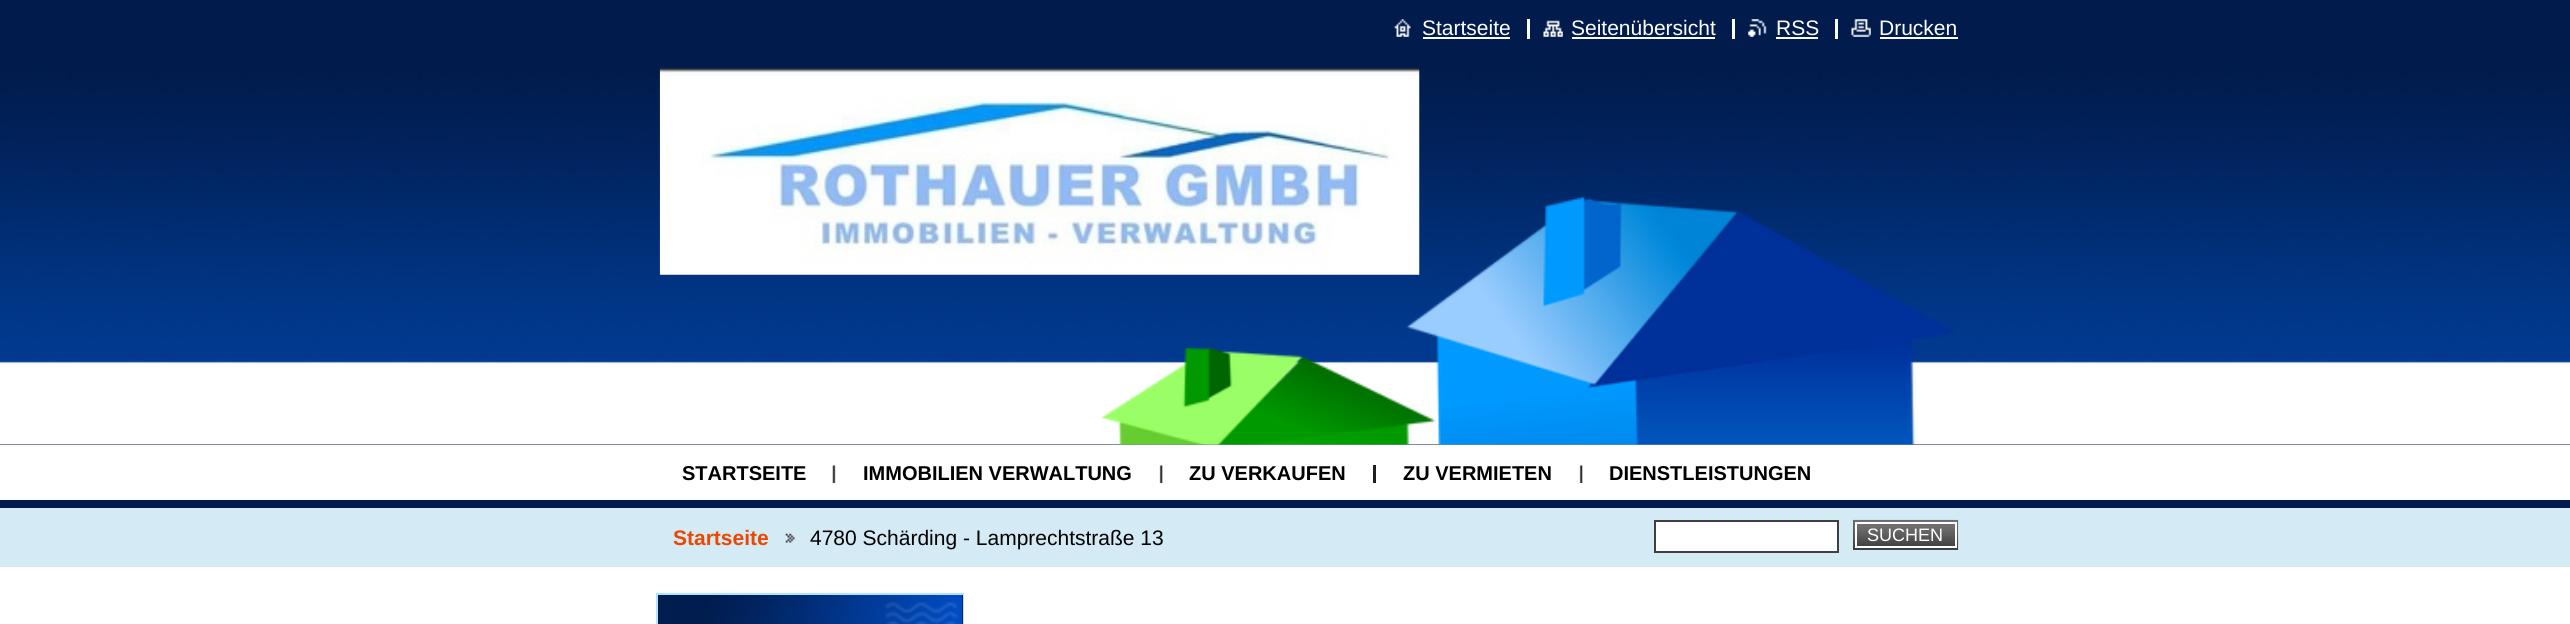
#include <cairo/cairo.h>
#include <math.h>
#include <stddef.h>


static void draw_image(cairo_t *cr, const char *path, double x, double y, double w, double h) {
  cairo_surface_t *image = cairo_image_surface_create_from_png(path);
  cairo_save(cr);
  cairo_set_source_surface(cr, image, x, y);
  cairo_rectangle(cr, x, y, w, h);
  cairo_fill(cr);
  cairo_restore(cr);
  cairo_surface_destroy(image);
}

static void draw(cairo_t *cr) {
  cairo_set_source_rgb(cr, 1, 1, 1);
  cairo_paint(cr);
  cairo_set_source_rgb(cr, 1 / 255.0, 27 / 255.0, 76 / 255.0);
  cairo_rectangle(cr, 0, 0, 2570, 60);
  cairo_fill(cr);
  draw_image(cr, "images/1.png", 1394, 19, 17, 18);
  cairo_set_source_rgb(cr, 1, 1, 1);
  cairo_rectangle(cr, 1423, 37, 87, 2);
  cairo_fill(cr);
  draw_image(cr, "images/2.png", 1543, 20, 20, 17);
  cairo_rectangle(cr, 1527, 19, 3, 20);
  cairo_fill(cr);
  cairo_rectangle(cr, 1572, 37, 143, 2);
  cairo_fill(cr);
  draw_image(cr, "images/3.png", 1748, 19, 19, 18);
  cairo_rectangle(cr, 1732, 19, 3, 20);
  cairo_fill(cr);
  cairo_rectangle(cr, 1776, 37, 42, 2);
  cairo_fill(cr);
  draw_image(cr, "images/4.png", 1851, 19, 20, 18);
  cairo_rectangle(cr, 1835, 19, 3, 20);
  cairo_fill(cr);
  cairo_rectangle(cr, 1880, 37, 78, 2);
  cairo_fill(cr);
  cairo_set_source_rgb(cr, 0, 21 / 255.0, 64 / 255.0);
  cairo_rectangle(cr, 0, 444, 2570, 1);
  cairo_fill(cr);
  draw_image(cr, "images/5.png", 0, 60, 2570, 385);
  draw_image(cr, "images/7.png", 1101, 195, 854, 250);
  draw_image(cr, "images/6.png", 659, 68, 761, 207);
  draw_image(cr, "images/8.png", 832, 465, 4, 18);
  draw_image(cr, "images/9.png", 1159, 465, 4, 18);
  cairo_set_source_rgb(cr, 31 / 255.0, 31 / 255.0, 31 / 255.0);
  cairo_rectangle(cr, 1373, 465, 3, 18);
  cairo_fill(cr);
  draw_image(cr, "images/9.png", 1579, 465, 4, 18);
  cairo_set_source_rgb(cr, 212 / 255.0, 234 / 255.0, 245 / 255.0);
  cairo_rectangle(cr, 0, 508, 2570, 59);
  cairo_fill(cr);
  cairo_set_source_rgb(cr, 1 / 255.0, 28 / 255.0, 76 / 255.0);
  cairo_rectangle(cr, 0, 500, 2570, 8);
  cairo_fill(cr);
  draw_image(cr, "images/10.png", 785, 533, 10, 10);
  cairo_set_source_rgb(cr, 1, 1, 1);
  cairo_rectangle(cr, 1655, 521, 183, 31);
  cairo_fill_preserve(cr);
  cairo_set_source_rgb(cr, 64 / 255.0, 64 / 255.0, 64 / 255.0);
  cairo_stroke(cr);
  cairo_rectangle(cr, 1853, 520, 105, 30);
  cairo_fill(cr);
  draw_image(cr, "images/11.png", 1853, 519, 106, 31);
  draw_image(cr, "images/12.png", 1857, 524, 98, 22);
  cairo_rectangle(cr, 1856, 523, 100, 24);
  cairo_set_source_rgb(cr, 1, 1, 1);
  cairo_stroke(cr);
  cairo_rectangle(cr, 657, 594, 306, 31);
  cairo_set_source_rgb(cr, 177 / 255.0, 228 / 255.0, 251 / 255.0);
  cairo_stroke(cr);
  cairo_set_source_rgb(cr, 0, 21 / 255.0, 64 / 255.0);
  cairo_rectangle(cr, 962, 595, 1, 29);
  cairo_fill(cr);
  draw_image(cr, "images/13.png", 658, 595, 305, 29);
  cairo_select_font_face(cr, "Liberation Sans", CAIRO_FONT_SLANT_NORMAL, CAIRO_FONT_WEIGHT_NORMAL);
  cairo_set_font_size(cr, 21);
  cairo_set_source_rgb(cr, 1, 1, 1);
  cairo_move_to(cr, 1422, 35);
  cairo_show_text(cr, "Startseite");
  cairo_move_to(cr, 1571, 35);
  cairo_show_text(cr, "Seitenübersicht");
  cairo_move_to(cr, 1776, 35);
  cairo_show_text(cr, "RSS");
  cairo_move_to(cr, 1879, 35);
  cairo_show_text(cr, "Drucken");
  cairo_select_font_face(cr, "Liberation Sans", CAIRO_FONT_SLANT_NORMAL, CAIRO_FONT_WEIGHT_BOLD);
  cairo_set_font_size(cr, 20);
  cairo_set_source_rgb(cr, 0, 0, 0);
  cairo_move_to(cr, 682, 480);
  cairo_show_text(cr, "STARTSEITE");
  cairo_move_to(cr, 863, 480);
  cairo_show_text(cr, "IMMOBILIEN VERWALTUNG");
  cairo_move_to(cr, 1189, 480);
  cairo_show_text(cr, "ZU VERKAUFEN");
  cairo_move_to(cr, 1403, 480);
  cairo_show_text(cr, "ZU VERMIETEN");
  cairo_move_to(cr, 1609, 480);
  cairo_show_text(cr, "DIENSTLEISTUNGEN");
  cairo_set_font_size(cr, 21);
  cairo_set_source_rgb(cr, 236 / 255.0, 71 / 255.0, 0);
  cairo_move_to(cr, 673, 545);
  cairo_show_text(cr, "Startseite");
  cairo_select_font_face(cr, "Liberation Sans", CAIRO_FONT_SLANT_NORMAL, CAIRO_FONT_WEIGHT_NORMAL);
  cairo_set_source_rgb(cr, 0, 0, 0);
  cairo_move_to(cr, 810, 545);
  cairo_show_text(cr, "4780 Schärding - Lamprechtstraße 13");
  cairo_set_font_size(cr, 18);
  cairo_set_source_rgb(cr, 1, 1, 1);
  cairo_move_to(cr, 1867, 541);
  cairo_show_text(cr, "SUCHEN");
}

int main(void) {
  cairo_surface_t *surface = cairo_image_surface_create(CAIRO_FORMAT_RGB24, 2570, 624);
  cairo_t *cr = cairo_create(surface);
  cairo_font_options_t *options = cairo_font_options_create();
  cairo_font_options_set_hint_metrics(options, CAIRO_HINT_METRICS_OFF);
  cairo_font_options_set_hint_style(options, CAIRO_HINT_STYLE_NONE);
  cairo_set_font_options(cr, options);
  cairo_set_miter_limit(cr, 4);
  draw(cr);
  cairo_surface_write_to_png(surface, "out.png");
  cairo_font_options_destroy(options);
  cairo_destroy(cr);
  cairo_surface_destroy(surface);
  return 0;
}
